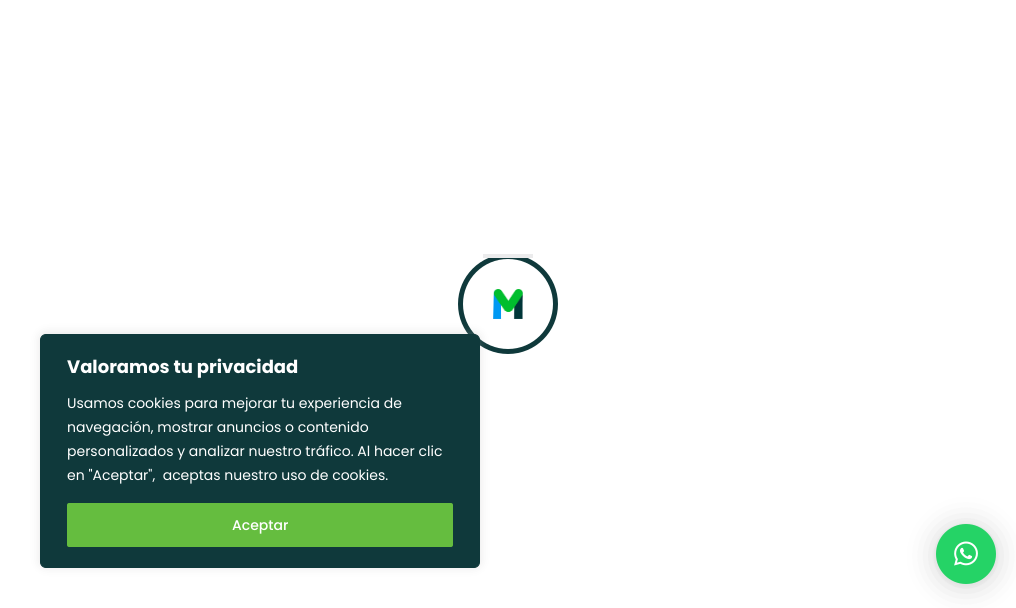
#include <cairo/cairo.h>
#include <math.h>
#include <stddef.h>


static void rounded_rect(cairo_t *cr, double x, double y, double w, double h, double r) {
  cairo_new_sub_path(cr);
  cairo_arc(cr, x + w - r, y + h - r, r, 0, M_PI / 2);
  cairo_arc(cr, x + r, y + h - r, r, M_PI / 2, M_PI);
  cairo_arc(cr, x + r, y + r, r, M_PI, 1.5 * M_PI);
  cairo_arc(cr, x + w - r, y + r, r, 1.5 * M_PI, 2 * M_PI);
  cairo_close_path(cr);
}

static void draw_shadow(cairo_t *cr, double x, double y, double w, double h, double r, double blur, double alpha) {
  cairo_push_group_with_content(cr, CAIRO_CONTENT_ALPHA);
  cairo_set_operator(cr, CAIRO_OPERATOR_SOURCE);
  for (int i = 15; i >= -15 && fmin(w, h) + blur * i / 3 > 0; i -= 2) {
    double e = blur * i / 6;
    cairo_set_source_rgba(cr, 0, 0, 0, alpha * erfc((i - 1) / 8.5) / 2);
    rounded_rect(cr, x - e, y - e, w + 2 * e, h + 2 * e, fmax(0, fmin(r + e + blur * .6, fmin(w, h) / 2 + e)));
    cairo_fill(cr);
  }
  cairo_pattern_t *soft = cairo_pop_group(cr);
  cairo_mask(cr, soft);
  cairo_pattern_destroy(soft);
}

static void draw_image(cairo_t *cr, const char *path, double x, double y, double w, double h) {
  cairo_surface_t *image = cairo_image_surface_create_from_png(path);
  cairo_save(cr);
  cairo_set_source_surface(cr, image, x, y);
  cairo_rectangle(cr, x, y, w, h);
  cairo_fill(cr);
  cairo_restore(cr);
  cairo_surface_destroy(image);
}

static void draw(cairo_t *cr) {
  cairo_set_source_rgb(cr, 1, 1, 1);
  cairo_paint(cr);
  cairo_arc(cr, 508, 304, 47.5, 0, 2 * M_PI);
  cairo_set_source_rgb(cr, 15 / 255.0, 57 / 255.0, 59 / 255.0);
  cairo_set_line_width(cr, 5);
  cairo_stroke(cr);
  cairo_set_source_rgb(cr, 235 / 255.0, 235 / 255.0, 236 / 255.0);
  cairo_rectangle(cr, 483, 254, 50, 4);
  cairo_fill(cr);
  draw_image(cr, "images/1.png", 493, 289, 30, 30);
  cairo_set_source_rgb(cr, 172 / 255.0, 171 / 255.0, 171 / 255.0);
  draw_shadow(cr, 40, 333, 440, 234, 6, 5, 0.3);
  cairo_set_source_rgb(cr, 15 / 255.0, 57 / 255.0, 59 / 255.0);
  rounded_rect(cr, 40.5, 334.5, 439, 233, 5.5);
  cairo_fill_preserve(cr);
  cairo_set_line_width(cr, 1);
  cairo_stroke(cr);
  cairo_set_source_rgb(cr, 101 / 255.0, 189 / 255.0, 63 / 255.0);
  rounded_rect(cr, 68, 504, 384, 42, 1);
  cairo_fill_preserve(cr);
  cairo_set_line_width(cr, 2);
  cairo_stroke(cr);
  cairo_set_source_rgb(cr, 0, 0, 0);
  draw_shadow(cr, 936, 526, 60, 60, 30, 16, 0.16);
  draw_shadow(cr, 936, 525, 60, 60, 30, 3, 0.06);
  cairo_set_source_rgb(cr, 37 / 255.0, 211 / 255.0, 102 / 255.0);
  cairo_arc(cr, 966, 554, 30, 0, 2 * M_PI);
  cairo_fill(cr);
  draw_image(cr, "images/2.png", 954, 541, 24, 25);
  cairo_select_font_face(cr, "Poppins", CAIRO_FONT_SLANT_NORMAL, CAIRO_FONT_WEIGHT_BOLD);
  cairo_set_font_size(cr, 18);
  cairo_set_source_rgb(cr, 1, 1, 1);
  cairo_move_to(cr, 67, 373);
  cairo_show_text(cr, "Valoramos tu privacidad");
  cairo_select_font_face(cr, "Poppins", CAIRO_FONT_SLANT_NORMAL, CAIRO_FONT_WEIGHT_NORMAL);
  cairo_set_font_size(cr, 14);
  cairo_move_to(cr, 67, 408);
  cairo_show_text(cr, "Usamos cookies para mejorar tu experiencia de");
  cairo_move_to(cr, 67, 432);
  cairo_show_text(cr, "navegación, mostrar anuncios o contenido");
  cairo_move_to(cr, 67, 456);
  cairo_show_text(cr, "personalizados y analizar nuestro tráfico. Al hacer clic");
  cairo_move_to(cr, 67, 480);
  cairo_show_text(cr, "en \"Aceptar\",  aceptas nuestro uso de cookies.");
  cairo_select_font_face(cr, "Poppins Medium", CAIRO_FONT_SLANT_NORMAL, CAIRO_FONT_WEIGHT_NORMAL);
  cairo_move_to(cr, 232, 530);
  cairo_show_text(cr, "Aceptar");
}

int main(void) {
  cairo_surface_t *surface = cairo_image_surface_create(CAIRO_FORMAT_RGB24, 1016, 608);
  cairo_t *cr = cairo_create(surface);
  cairo_font_options_t *options = cairo_font_options_create();
  cairo_font_options_set_hint_metrics(options, CAIRO_HINT_METRICS_OFF);
  cairo_font_options_set_hint_style(options, CAIRO_HINT_STYLE_NONE);
  cairo_set_font_options(cr, options);
  cairo_set_miter_limit(cr, 4);
  draw(cr);
  cairo_surface_write_to_png(surface, "out.png");
  cairo_font_options_destroy(options);
  cairo_destroy(cr);
  cairo_surface_destroy(surface);
  return 0;
}
